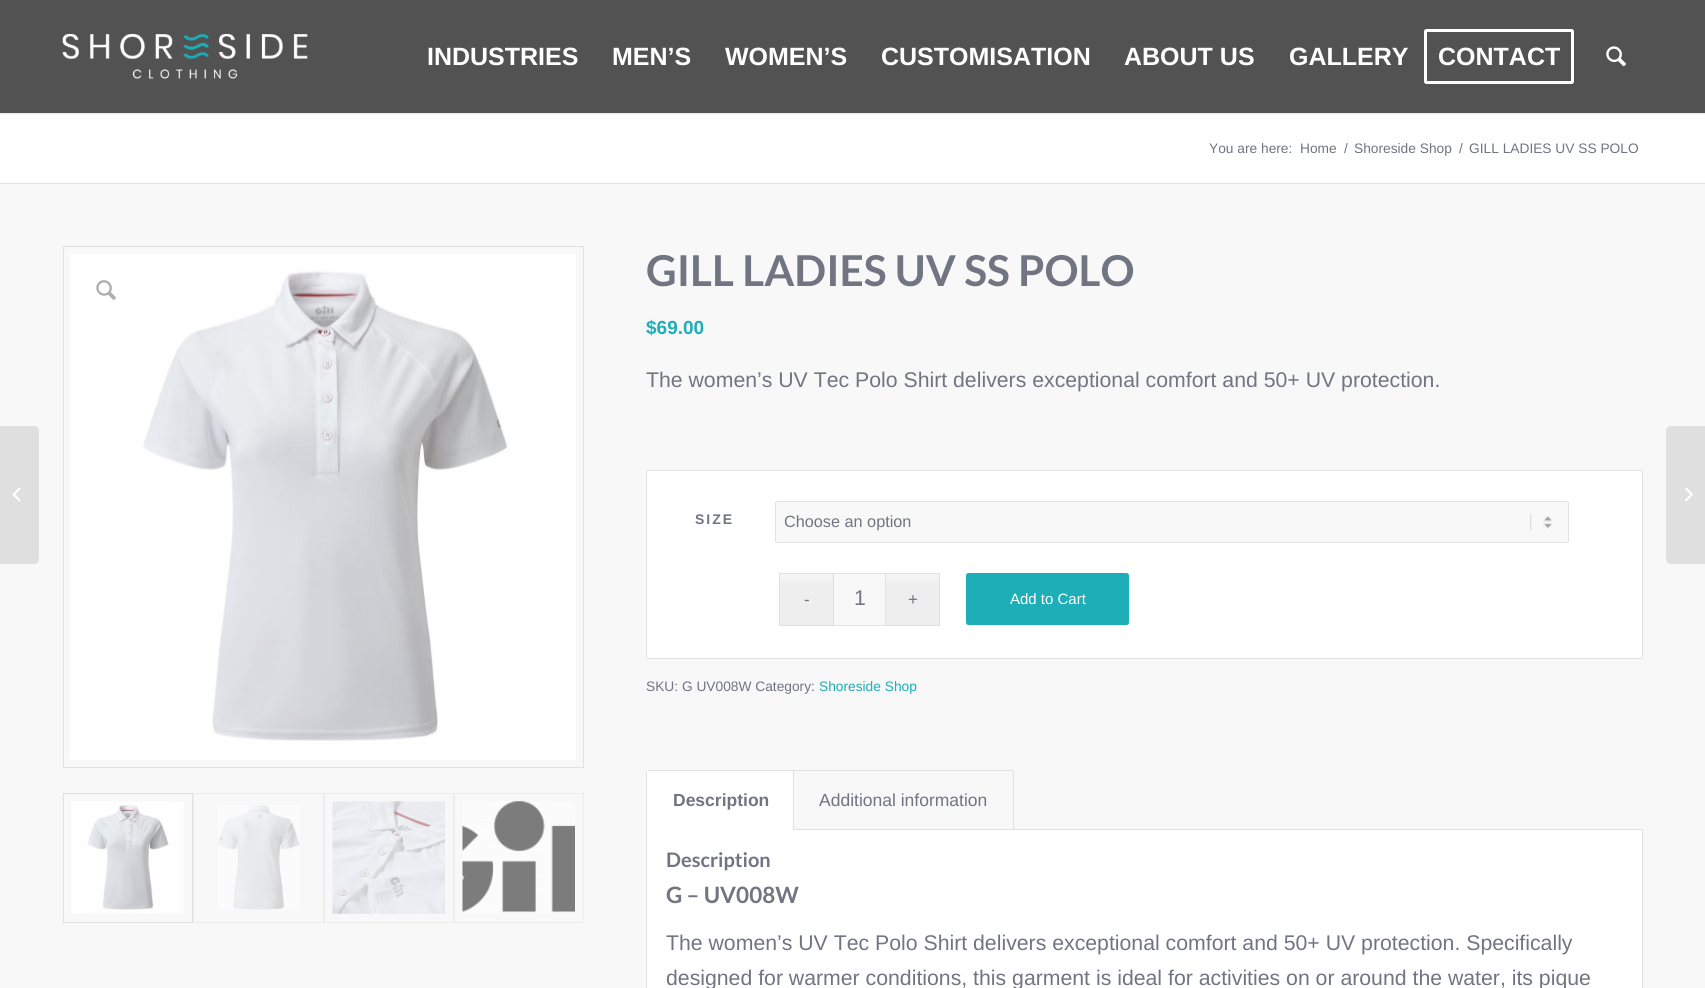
#include <cairo/cairo.h>
#include <math.h>
#include <stddef.h>


static void draw_spaced(cairo_t *cr, double x, double y, const char *s, double letter, double word) {
  cairo_move_to(cr, x, y);
  while (*s) {
    char ch[5] = {0};
    int n = 0;
    do ch[n++] = *s++; while ((*s & 0xC0) == 0x80);
    cairo_show_text(cr, ch);
    cairo_rel_move_to(cr, letter + word * (*ch == ' '), 0);
  }
}

static void rounded_rect(cairo_t *cr, double x, double y, double w, double h, double r) {
  cairo_new_sub_path(cr);
  cairo_arc(cr, x + w - r, y + h - r, r, 0, M_PI / 2);
  cairo_arc(cr, x + r, y + h - r, r, M_PI / 2, M_PI);
  cairo_arc(cr, x + r, y + r, r, M_PI, 1.5 * M_PI);
  cairo_arc(cr, x + w - r, y + r, r, 1.5 * M_PI, 2 * M_PI);
  cairo_close_path(cr);
}

static void draw_shadow(cairo_t *cr, double x, double y, double w, double h, double r, double blur, double alpha) {
  cairo_push_group_with_content(cr, CAIRO_CONTENT_ALPHA);
  cairo_set_operator(cr, CAIRO_OPERATOR_SOURCE);
  for (int i = 15; i >= -15 && fmin(w, h) + blur * i / 3 > 0; i -= 2) {
    double e = blur * i / 6;
    cairo_set_source_rgba(cr, 0, 0, 0, alpha * erfc((i - 1) / 8.5) / 2);
    rounded_rect(cr, x - e, y - e, w + 2 * e, h + 2 * e, fmax(0, fmin(r + e + blur * .6, fmin(w, h) / 2 + e)));
    cairo_fill(cr);
  }
  cairo_pattern_t *soft = cairo_pop_group(cr);
  cairo_mask(cr, soft);
  cairo_pattern_destroy(soft);
}

static void draw_image(cairo_t *cr, const char *path, double x, double y, double w, double h) {
  cairo_surface_t *image = cairo_image_surface_create_from_png(path);
  cairo_save(cr);
  cairo_set_source_surface(cr, image, x, y);
  cairo_rectangle(cr, x, y, w, h);
  cairo_fill(cr);
  cairo_restore(cr);
  cairo_surface_destroy(image);
}

static void draw(cairo_t *cr) {
  cairo_set_source_rgb(cr, 1, 1, 1);
  cairo_paint(cr);
  cairo_set_source_rgb(cr, 0, 0, 0);
  draw_shadow(cr, -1, -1, 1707, 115, 0, 1, 0.1);
  cairo_set_source_rgb(cr, 82 / 255.0, 82 / 255.0, 82 / 255.0);
  cairo_rectangle(cr, 0, 0, 1705, 113);
  cairo_fill(cr);
  draw_image(cr, "images/1.png", 62, 33, 246, 46);
  rounded_rect(cr, 1425.5, 30.5, 147, 52, 1);
  cairo_set_source_rgb(cr, 1, 1, 1);
  cairo_set_line_width(cr, 3);
  cairo_stroke(cr);
  draw_image(cr, "images/2.png", 1606, 46, 20, 21);
  cairo_set_source_rgb(cr, 248 / 255.0, 248 / 255.0, 248 / 255.0);
  cairo_rectangle(cr, 0, 184, 1705, 804);
  cairo_fill(cr);
  cairo_set_source_rgb(cr, 223 / 255.0, 223 / 255.0, 223 / 255.0);
  cairo_new_path(cr);
  cairo_move_to(cr, 0, 426);
  cairo_line_to(cr, 34, 426);
  cairo_curve_to(cr, 37, 426, 39, 428, 39, 431);
  cairo_line_to(cr, 39, 559);
  cairo_curve_to(cr, 39, 562, 37, 564, 34, 564);
  cairo_line_to(cr, 0, 564);
  cairo_close_path(cr);
  cairo_fill(cr);
  draw_image(cr, "images/3.png", 12, 487, 9, 15);
  cairo_set_source_rgb(cr, 225 / 255.0, 225 / 255.0, 225 / 255.0);
  cairo_rectangle(cr, 0, 183, 1705, 1);
  cairo_fill(cr);
  cairo_rectangle(cr, 63.5, 246.5, 520, 521);
  cairo_set_line_width(cr, 1);
  cairo_stroke(cr);
  draw_image(cr, "images/4.png", 70, 254, 506, 506);
  cairo_rectangle(cr, 63.5, 793.5, 129, 129);
  cairo_stroke(cr);
  draw_image(cr, "images/5.png", 71, 801, 113, 113);
  cairo_rectangle(cr, 193.5, 793.5, 130, 129);
  cairo_set_source_rgb(cr, 237 / 255.0, 237 / 255.0, 237 / 255.0);
  cairo_stroke(cr);
  draw_image(cr, "images/6.png", 218, 805, 82, 105);
  cairo_rectangle(cr, 324.5, 793.5, 129, 129);
  cairo_stroke(cr);
  draw_image(cr, "images/7.png", 332, 801, 113, 113);
  cairo_rectangle(cr, 454.5, 793.5, 129, 129);
  cairo_stroke(cr);
  draw_image(cr, "images/8.png", 462, 801, 113, 112);
  draw_image(cr, "images/9.png", 96, 280, 20, 20);
  cairo_set_source_rgb(cr, 1, 1, 1);
  rounded_rect(cr, 646.5, 470.5, 996, 188, 2);
  cairo_fill_preserve(cr);
  cairo_set_source_rgb(cr, 225 / 255.0, 225 / 255.0, 225 / 255.0);
  cairo_stroke(cr);
  cairo_set_source_rgb(cr, 248 / 255.0, 248 / 255.0, 248 / 255.0);
  rounded_rect(cr, 775, 501, 794, 42, 2.5);
  cairo_fill(cr);
  draw_image(cr, "images/10.png", 1530, 513, 22, 17);
  rounded_rect(cr, 775.5, 501.5, 793, 41, 2);
  cairo_set_source_rgb(cr, 225 / 255.0, 225 / 255.0, 225 / 255.0);
  cairo_stroke(cr);
  cairo_set_source_rgb(cr, 238 / 255.0, 238 / 255.0, 238 / 255.0);
  cairo_rectangle(cr, 780, 574, 53, 51);
  cairo_fill(cr);
  draw_image(cr, "images/11.png", 780, 574, 52, 9);
  cairo_rectangle(cr, 886, 574, 53, 51);
  cairo_fill(cr);
  draw_image(cr, "images/12.png", 886, 574, 53, 9);
  cairo_set_source_rgb(cr, 225 / 255.0, 225 / 255.0, 225 / 255.0);
  cairo_rectangle(cr, 779, 573, 54, 1);
  cairo_fill(cr);
  cairo_rectangle(cr, 779, 625, 54, 1);
  cairo_fill(cr);
  cairo_rectangle(cr, 779, 573, 1, 53);
  cairo_fill(cr);
  cairo_set_source_rgb(cr, 248 / 255.0, 248 / 255.0, 248 / 255.0);
  cairo_rectangle(cr, 833.5, 573.5, 52, 52);
  cairo_fill_preserve(cr);
  cairo_set_source_rgb(cr, 225 / 255.0, 225 / 255.0, 225 / 255.0);
  cairo_stroke(cr);
  cairo_rectangle(cr, 886, 573, 54, 1);
  cairo_fill(cr);
  cairo_rectangle(cr, 939, 573, 1, 53);
  cairo_fill(cr);
  cairo_rectangle(cr, 886, 625, 54, 1);
  cairo_fill(cr);
  cairo_set_source_rgb(cr, 29 / 255.0, 174 / 255.0, 184 / 255.0);
  rounded_rect(cr, 966, 573, 163, 52, 2.5);
  cairo_fill(cr);
  cairo_set_source_rgb(cr, 1, 1, 1);
  cairo_rectangle(cr, 646.5, 829.5, 996, 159);
  cairo_fill_preserve(cr);
  cairo_set_source_rgb(cr, 225 / 255.0, 225 / 255.0, 225 / 255.0);
  cairo_stroke(cr);
  cairo_set_source_rgb(cr, 1, 1, 1);
  cairo_rectangle(cr, 646, 770, 147, 60);
  cairo_fill(cr);
  cairo_set_source_rgb(cr, 225 / 255.0, 225 / 255.0, 225 / 255.0);
  cairo_rectangle(cr, 793, 770, 220, 1);
  cairo_fill(cr);
  cairo_rectangle(cr, 648, 770, 146, 1);
  cairo_fill(cr);
  cairo_rectangle(cr, 793, 770, 1, 60);
  cairo_fill(cr);
  cairo_rectangle(cr, 646, 771, 1, 59);
  cairo_fill(cr);
  cairo_rectangle(cr, 1013, 771, 1, 59);
  cairo_fill(cr);
  cairo_set_source_rgb(cr, 223 / 255.0, 223 / 255.0, 223 / 255.0);
  cairo_new_path(cr);
  cairo_move_to(cr, 1671, 426);
  cairo_line_to(cr, 1705, 426);
  cairo_line_to(cr, 1705, 564);
  cairo_line_to(cr, 1671, 564);
  cairo_curve_to(cr, 1668, 564, 1666, 562, 1666, 559);
  cairo_line_to(cr, 1666, 431);
  cairo_curve_to(cr, 1666, 428, 1668, 426, 1671, 426);
  cairo_close_path(cr);
  cairo_fill(cr);
  draw_image(cr, "images/13.png", 1685, 487, 8, 15);
  cairo_select_font_face(cr, "Liberation Sans", CAIRO_FONT_SLANT_NORMAL, CAIRO_FONT_WEIGHT_BOLD);
  cairo_set_font_size(cr, 25);
  cairo_set_source_rgb(cr, 1, 1, 1);
  cairo_move_to(cr, 427, 65);
  cairo_show_text(cr, "INDUSTRIES");
  cairo_move_to(cr, 612, 65);
  cairo_show_text(cr, "MEN’S");
  cairo_move_to(cr, 725, 65);
  cairo_show_text(cr, "WOMEN’S");
  cairo_move_to(cr, 881, 65);
  cairo_show_text(cr, "CUSTOMISATION");
  cairo_move_to(cr, 1124, 65);
  cairo_show_text(cr, "ABOUT US");
  cairo_move_to(cr, 1289, 65);
  cairo_show_text(cr, "GALLERY");
  cairo_move_to(cr, 1438, 65);
  cairo_show_text(cr, "CONTACT");
  cairo_select_font_face(cr, "Liberation Sans", CAIRO_FONT_SLANT_NORMAL, CAIRO_FONT_WEIGHT_NORMAL);
  cairo_set_font_size(cr, 13.75);
  cairo_set_source_rgb(cr, 113 / 255.0, 116 / 255.0, 129 / 255.0);
  cairo_move_to(cr, 1209, 153);
  cairo_show_text(cr, "You are here:");
  cairo_move_to(cr, 1300, 153);
  cairo_show_text(cr, "Home");
  cairo_move_to(cr, 1344, 153);
  cairo_show_text(cr, "/");
  cairo_move_to(cr, 1354, 153);
  cairo_show_text(cr, "Shoreside Shop");
  cairo_move_to(cr, 1459, 153);
  cairo_show_text(cr, "/");
  cairo_move_to(cr, 1469, 153);
  cairo_show_text(cr, "GILL LADIES UV SS POLO");
  cairo_select_font_face(cr, "Lato", CAIRO_FONT_SLANT_NORMAL, CAIRO_FONT_WEIGHT_BOLD);
  cairo_set_font_size(cr, 42.5);
  cairo_move_to(cr, 646, 286);
  cairo_show_text(cr, "GILL LADIES UV SS POLO");
  cairo_select_font_face(cr, "Liberation Sans", CAIRO_FONT_SLANT_NORMAL, CAIRO_FONT_WEIGHT_BOLD);
  cairo_set_font_size(cr, 19);
  cairo_set_source_rgb(cr, 29 / 255.0, 174 / 255.0, 184 / 255.0);
  cairo_move_to(cr, 646, 334);
  cairo_show_text(cr, "$69.00");
  cairo_select_font_face(cr, "Liberation Sans", CAIRO_FONT_SLANT_NORMAL, CAIRO_FONT_WEIGHT_NORMAL);
  cairo_set_font_size(cr, 21.25);
  cairo_set_source_rgb(cr, 113 / 255.0, 116 / 255.0, 129 / 255.0);
  cairo_move_to(cr, 646, 387);
  cairo_show_text(cr, "The women’s UV Tec Polo Shirt delivers exceptional comfort and 50+ UV protection.");
  cairo_select_font_face(cr, "Liberation Sans", CAIRO_FONT_SLANT_NORMAL, CAIRO_FONT_WEIGHT_BOLD);
  cairo_set_font_size(cr, 14);
  draw_spaced(cr, 695, 524, "SIZE", 2, 0);
  cairo_select_font_face(cr, "Liberation Sans", CAIRO_FONT_SLANT_NORMAL, CAIRO_FONT_WEIGHT_NORMAL);
  cairo_set_font_size(cr, 16.25);
  cairo_move_to(cr, 784, 527);
  cairo_show_text(cr, "Choose an option");
  cairo_set_font_size(cr, 17);
  cairo_move_to(cr, 804, 605);
  cairo_show_text(cr, "-");
  cairo_set_font_size(cr, 21.25);
  cairo_move_to(cr, 854, 605);
  cairo_show_text(cr, "1");
  cairo_set_font_size(cr, 17);
  cairo_move_to(cr, 908, 605);
  cairo_show_text(cr, "+");
  cairo_set_font_size(cr, 15);
  cairo_set_source_rgb(cr, 1, 1, 1);
  cairo_move_to(cr, 1010, 604);
  cairo_show_text(cr, "Add to Cart");
  cairo_set_font_size(cr, 13.75);
  cairo_set_source_rgb(cr, 113 / 255.0, 116 / 255.0, 129 / 255.0);
  cairo_move_to(cr, 646, 691);
  cairo_show_text(cr, "SKU: G UV008W Category:");
  cairo_set_source_rgb(cr, 29 / 255.0, 174 / 255.0, 184 / 255.0);
  cairo_move_to(cr, 819, 691);
  cairo_show_text(cr, "Shoreside Shop");
  cairo_select_font_face(cr, "Liberation Sans", CAIRO_FONT_SLANT_NORMAL, CAIRO_FONT_WEIGHT_BOLD);
  cairo_set_font_size(cr, 17.5);
  cairo_set_source_rgb(cr, 113 / 255.0, 116 / 255.0, 129 / 255.0);
  cairo_move_to(cr, 673, 806);
  cairo_show_text(cr, "Description");
  cairo_select_font_face(cr, "Liberation Sans", CAIRO_FONT_SLANT_NORMAL, CAIRO_FONT_WEIGHT_NORMAL);
  cairo_move_to(cr, 819, 806);
  cairo_show_text(cr, "Additional information");
  cairo_select_font_face(cr, "Lato", CAIRO_FONT_SLANT_NORMAL, CAIRO_FONT_WEIGHT_BOLD);
  cairo_set_font_size(cr, 20);
  cairo_move_to(cr, 666, 867);
  cairo_show_text(cr, "Description");
  cairo_set_font_size(cr, 22.5);
  cairo_move_to(cr, 666, 903);
  cairo_show_text(cr, "G – UV008W");
  cairo_select_font_face(cr, "Liberation Sans", CAIRO_FONT_SLANT_NORMAL, CAIRO_FONT_WEIGHT_NORMAL);
  cairo_set_font_size(cr, 21.25);
  cairo_move_to(cr, 666, 950);
  cairo_show_text(cr, "The women’s UV Tec Polo Shirt delivers exceptional comfort and 50+ UV protection. Specifically");
  cairo_move_to(cr, 666, 985);
  cairo_show_text(cr, "designed for warmer conditions, this garment is ideal for activities on or around the water, its pique");
}

int main(void) {
  cairo_surface_t *surface = cairo_image_surface_create(CAIRO_FORMAT_RGB24, 1705, 988);
  cairo_t *cr = cairo_create(surface);
  cairo_font_options_t *options = cairo_font_options_create();
  cairo_font_options_set_hint_metrics(options, CAIRO_HINT_METRICS_OFF);
  cairo_font_options_set_hint_style(options, CAIRO_HINT_STYLE_NONE);
  cairo_set_font_options(cr, options);
  cairo_set_miter_limit(cr, 4);
  draw(cr);
  cairo_surface_write_to_png(surface, "out.png");
  cairo_font_options_destroy(options);
  cairo_destroy(cr);
  cairo_surface_destroy(surface);
  return 0;
}
